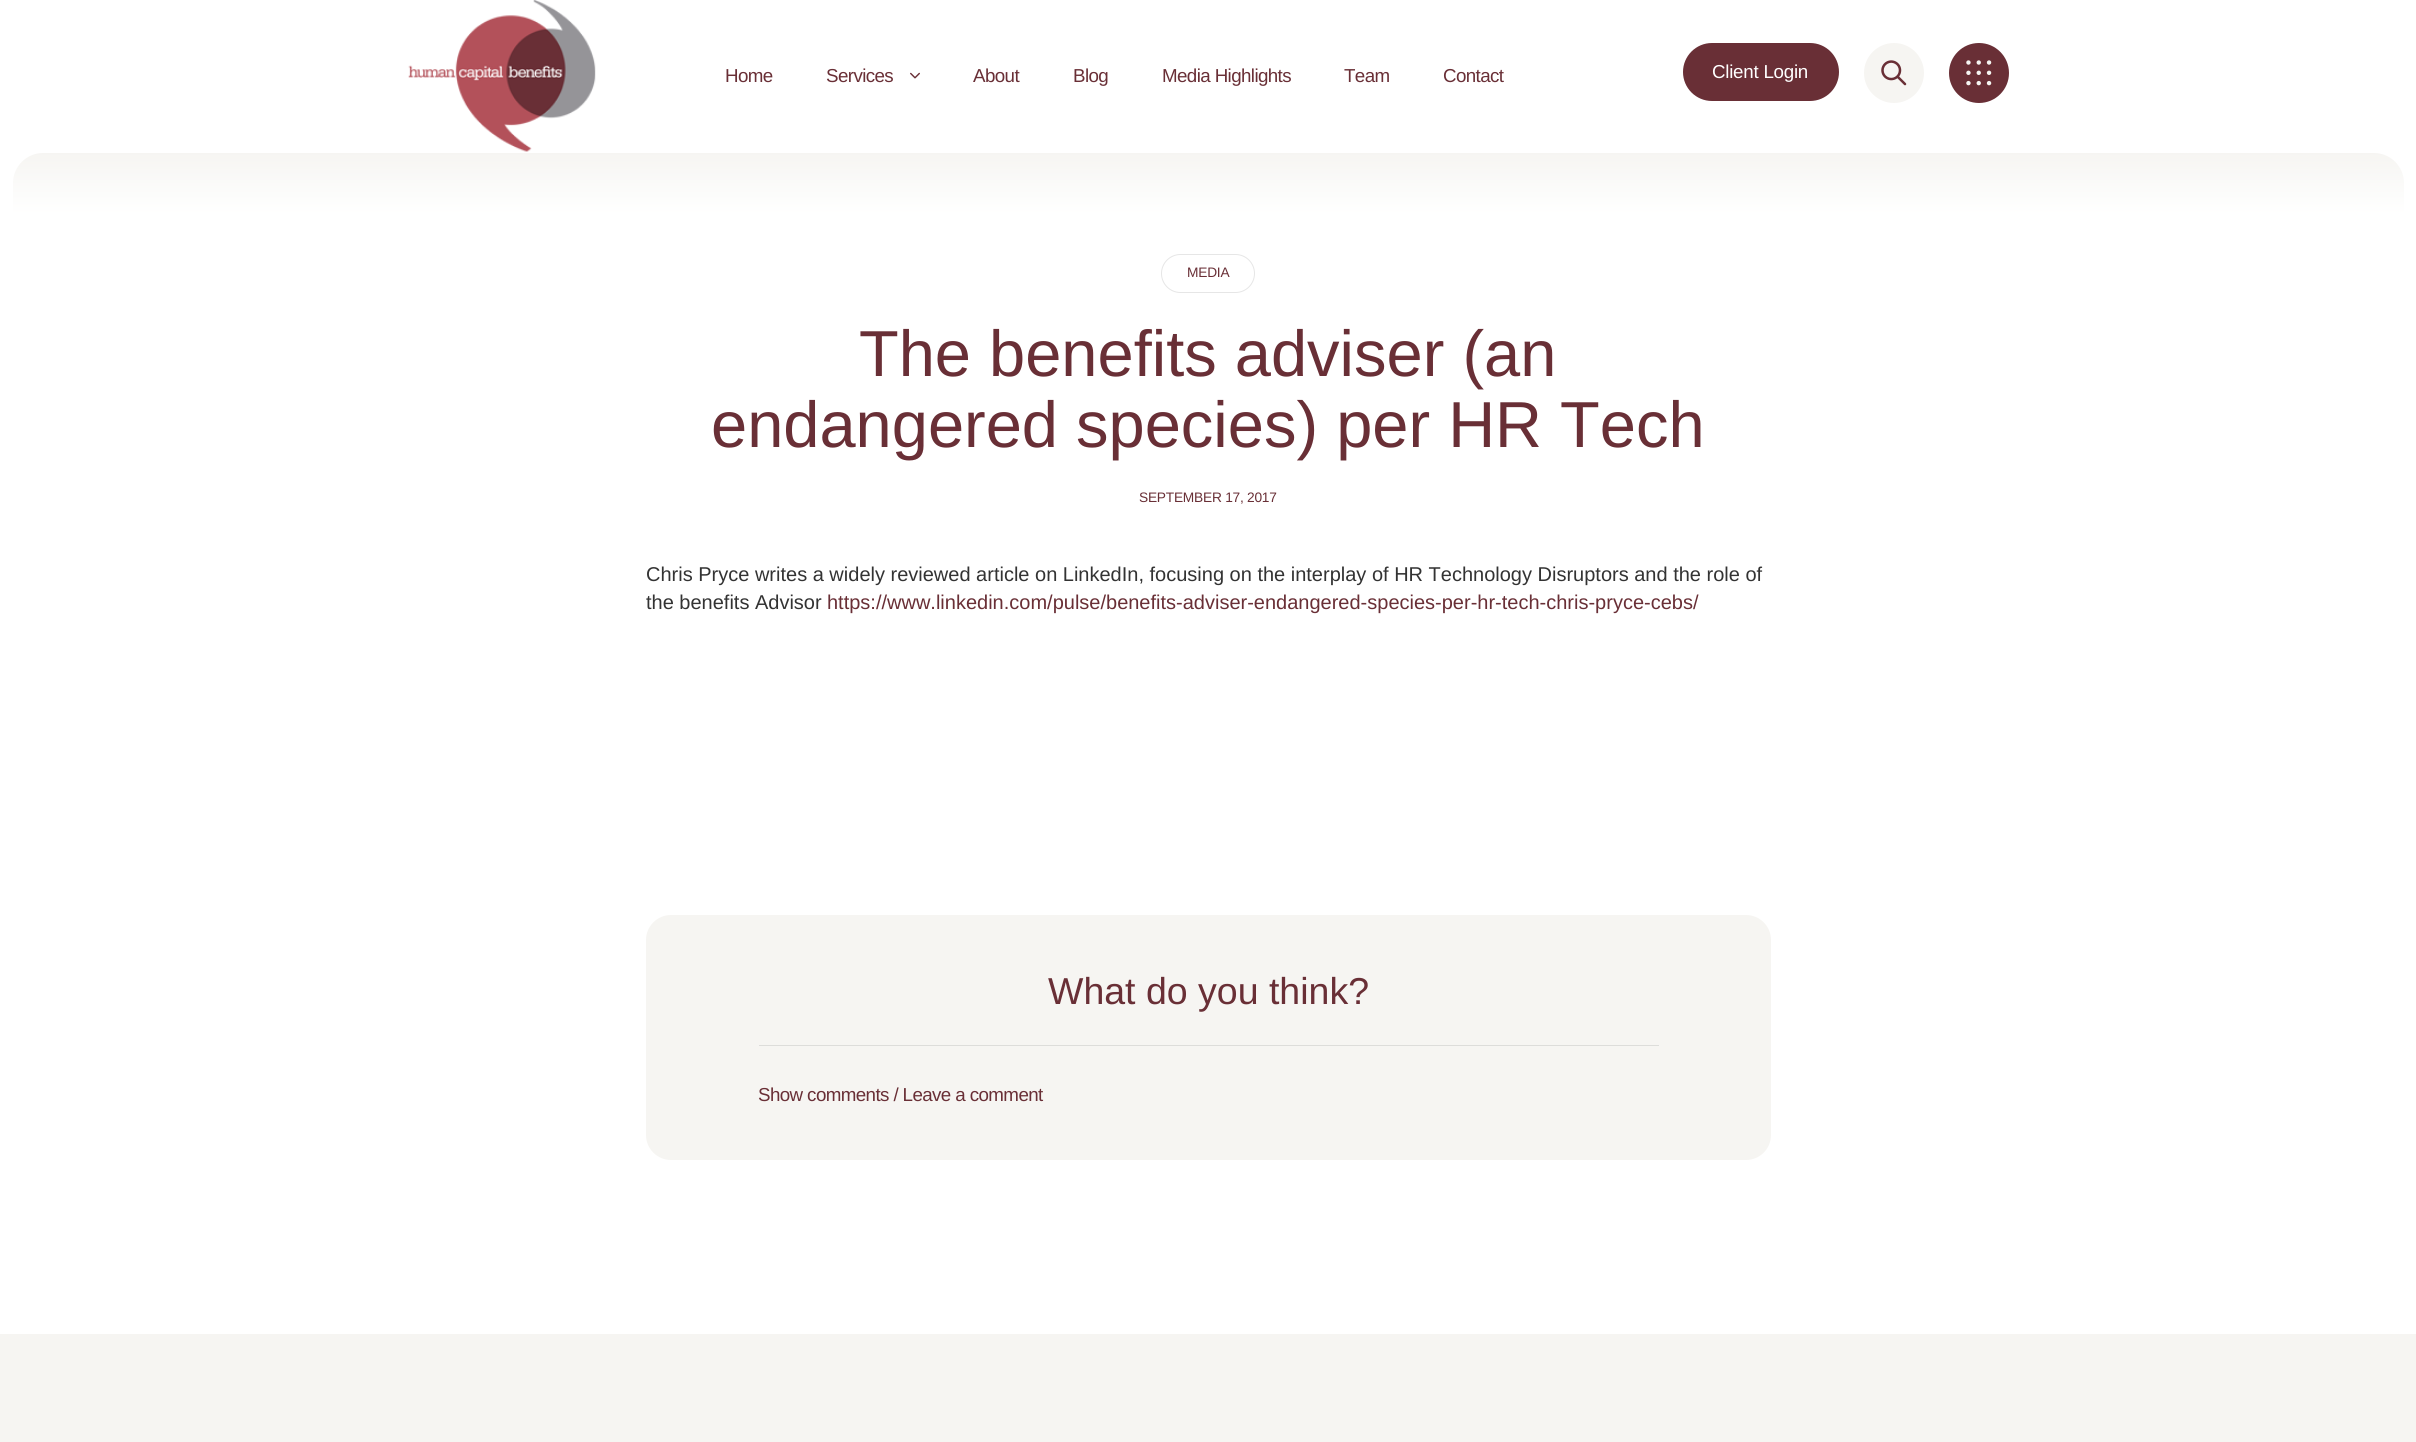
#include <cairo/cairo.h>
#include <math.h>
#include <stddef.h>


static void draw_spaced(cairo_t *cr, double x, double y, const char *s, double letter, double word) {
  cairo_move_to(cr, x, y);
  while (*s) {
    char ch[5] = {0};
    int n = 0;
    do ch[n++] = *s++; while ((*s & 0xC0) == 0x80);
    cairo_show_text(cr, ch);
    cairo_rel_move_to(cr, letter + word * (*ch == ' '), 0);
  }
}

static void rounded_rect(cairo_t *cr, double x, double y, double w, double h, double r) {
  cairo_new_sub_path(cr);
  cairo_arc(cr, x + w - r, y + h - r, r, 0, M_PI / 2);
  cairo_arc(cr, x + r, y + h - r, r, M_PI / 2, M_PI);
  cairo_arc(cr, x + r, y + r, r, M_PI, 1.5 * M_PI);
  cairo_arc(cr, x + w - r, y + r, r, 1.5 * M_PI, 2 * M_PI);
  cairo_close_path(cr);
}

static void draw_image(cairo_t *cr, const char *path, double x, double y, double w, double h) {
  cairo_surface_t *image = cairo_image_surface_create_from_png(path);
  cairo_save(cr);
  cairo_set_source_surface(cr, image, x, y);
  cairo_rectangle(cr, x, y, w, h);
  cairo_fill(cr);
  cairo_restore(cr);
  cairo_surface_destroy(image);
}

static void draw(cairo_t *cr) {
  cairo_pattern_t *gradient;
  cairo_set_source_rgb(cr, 1, 1, 1);
  cairo_paint(cr);
  draw_image(cr, "images/1.png", 408, 0, 188, 152);
  draw_image(cr, "images/2.png", 910, 72, 10, 7);
  cairo_set_source_rgb(cr, 105 / 255.0, 47 / 255.0, 54 / 255.0);
  rounded_rect(cr, 1683, 43, 156, 58, 29);
  cairo_fill(cr);
  cairo_set_source_rgb(cr, 246 / 255.0, 245 / 255.0, 242 / 255.0);
  cairo_arc(cr, 1894, 73, 30, 0, 2 * M_PI);
  cairo_fill(cr);
  draw_image(cr, "images/3.png", 1881, 60, 26, 26);
  cairo_set_source_rgb(cr, 105 / 255.0, 47 / 255.0, 54 / 255.0);
  cairo_arc(cr, 1979, 73, 30, 0, 2 * M_PI);
  cairo_fill(cr);
  draw_image(cr, "images/4.png", 1966, 60, 26, 26);
  gradient = cairo_pattern_create_linear(1208, 152, 1208, 840);
  cairo_pattern_add_color_stop_rgba(gradient, 0, 246 / 255.0, 245 / 255.0, 242 / 255.0, 1);
  cairo_pattern_add_color_stop_rgba(gradient, 0.09, 1, 1, 1, 1);
  cairo_set_source(cr, gradient);
  cairo_pattern_destroy(gradient);
  cairo_new_path(cr);
  cairo_move_to(cr, 43, 153);
  cairo_line_to(cr, 2374, 153);
  cairo_curve_to(cr, 2390.5, 153, 2404, 166.5, 2404, 183);
  cairo_line_to(cr, 2404, 840);
  cairo_line_to(cr, 13, 840);
  cairo_line_to(cr, 13, 183);
  cairo_curve_to(cr, 13, 166.5, 26.5, 153, 43, 153);
  cairo_close_path(cr);
  cairo_fill(cr);
  rounded_rect(cr, 1161.5, 254.5, 93, 38, 19);
  cairo_set_source_rgb(cr, 230 / 255.0, 230 / 255.0, 230 / 255.0);
  cairo_set_line_width(cr, 1);
  cairo_stroke(cr);
  cairo_set_source_rgb(cr, 246 / 255.0, 245 / 255.0, 242 / 255.0);
  rounded_rect(cr, 646, 915, 1125, 245, 25);
  cairo_fill(cr);
  cairo_set_source_rgb(cr, 221 / 255.0, 221 / 255.0, 218 / 255.0);
  cairo_rectangle(cr, 759, 1045, 900, 1);
  cairo_fill(cr);
  gradient = cairo_pattern_create_linear(1208, 1334, 1208, 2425);
  cairo_pattern_add_color_stop_rgba(gradient, 0.6, 246 / 255.0, 245 / 255.0, 242 / 255.0, 1);
  cairo_pattern_add_color_stop_rgba(gradient, 1, 1, 1, 1, 1);
  cairo_set_source(cr, gradient);
  cairo_pattern_destroy(gradient);
  cairo_rectangle(cr, 0, 1334, 2416, 108);
  cairo_fill(cr);
  cairo_select_font_face(cr, "Liberation Sans", CAIRO_FONT_SLANT_NORMAL, CAIRO_FONT_WEIGHT_NORMAL);
  cairo_set_font_size(cr, 18.75);
  cairo_set_source_rgb(cr, 105 / 255.0, 47 / 255.0, 54 / 255.0);
  draw_spaced(cr, 725, 82, "Home", -0.6, 0);
  draw_spaced(cr, 826, 82, "Services", -0.6, 0);
  draw_spaced(cr, 973, 82, "About", -0.6, 0);
  draw_spaced(cr, 1073, 82, "Blog", -0.6, 0);
  draw_spaced(cr, 1162, 82, "Media Highlights", -0.6, 0);
  draw_spaced(cr, 1344, 82, "Team", -0.6, 0);
  draw_spaced(cr, 1443, 82, "Contact", -0.6, 0);
  cairo_set_source_rgb(cr, 1, 1, 1);
  draw_spaced(cr, 1712, 78, "Client Login", -0.25, 0);
  cairo_set_font_size(cr, 13.75);
  cairo_set_source_rgb(cr, 105 / 255.0, 47 / 255.0, 54 / 255.0);
  draw_spaced(cr, 1187, 277, "MEDIA", -0.25, 0);
  cairo_set_font_size(cr, 65);
  cairo_move_to(cr, 859, 376);
  cairo_show_text(cr, "The benefits adviser (an");
  cairo_move_to(cr, 711, 447);
  cairo_show_text(cr, "endangered species) per HR Tech");
  cairo_set_font_size(cr, 13.75);
  draw_spaced(cr, 1139, 502, "SEPTEMBER 17, 2017", -0.25, 0);
  cairo_set_font_size(cr, 20);
  cairo_set_source_rgb(cr, 51 / 255.0, 51 / 255.0, 51 / 255.0);
  cairo_move_to(cr, 646, 581);
  cairo_show_text(cr, "Chris Pryce writes a widely reviewed article on LinkedIn, focusing on the interplay of HR Technology Disruptors and the role of");
  cairo_move_to(cr, 646, 609);
  cairo_show_text(cr, "the benefits Advisor");
  cairo_set_source_rgb(cr, 105 / 255.0, 47 / 255.0, 54 / 255.0);
  cairo_move_to(cr, 827, 609);
  cairo_show_text(cr, "https://www.linkedin.com/pulse/benefits-adviser-endangered-species-per-hr-tech-chris-pryce-cebs/");
  cairo_set_font_size(cr, 37.5);
  cairo_move_to(cr, 1048, 1004);
  cairo_show_text(cr, "What do you think?");
  cairo_set_font_size(cr, 18.75);
  draw_spaced(cr, 758, 1101, "Show comments / Leave a comment", -0.6, 0);
}

int main(void) {
  cairo_surface_t *surface = cairo_image_surface_create(CAIRO_FORMAT_RGB24, 2416, 1442);
  cairo_t *cr = cairo_create(surface);
  cairo_font_options_t *options = cairo_font_options_create();
  cairo_font_options_set_hint_metrics(options, CAIRO_HINT_METRICS_OFF);
  cairo_font_options_set_hint_style(options, CAIRO_HINT_STYLE_NONE);
  cairo_set_font_options(cr, options);
  cairo_set_miter_limit(cr, 4);
  draw(cr);
  cairo_surface_write_to_png(surface, "out.png");
  cairo_font_options_destroy(options);
  cairo_destroy(cr);
  cairo_surface_destroy(surface);
  return 0;
}
